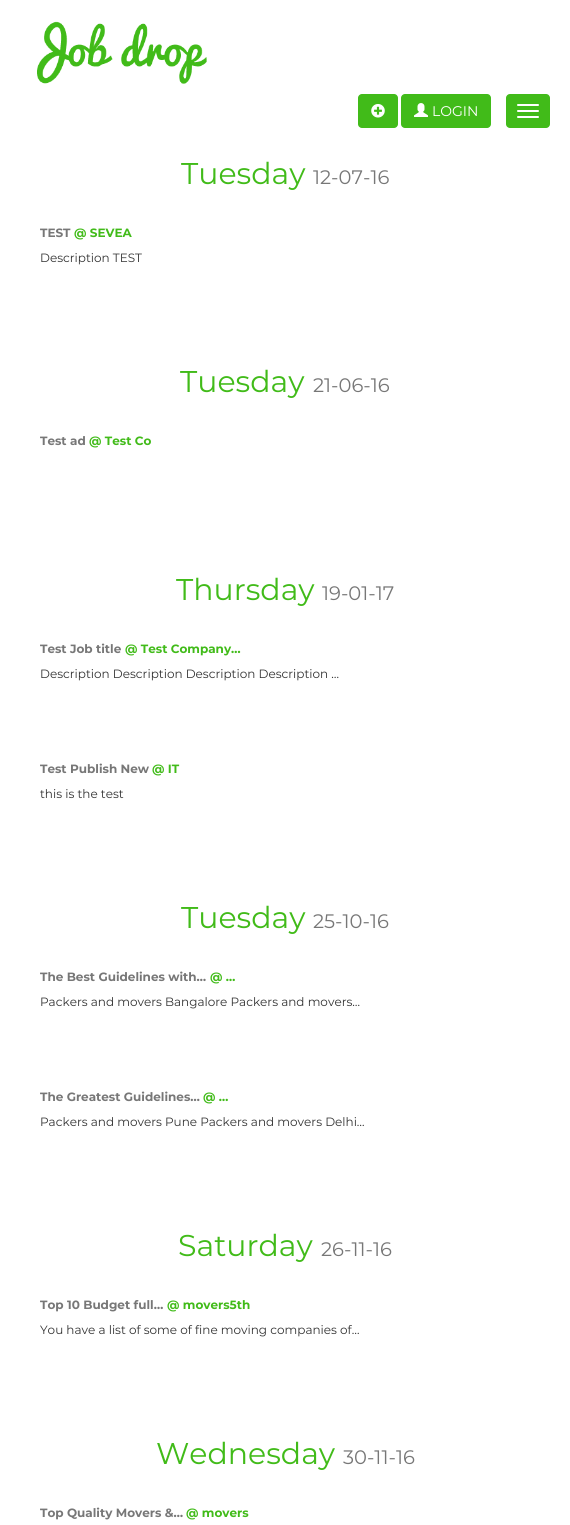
#include <cairo/cairo.h>
#include <math.h>
#include <stddef.h>


static void rounded_rect(cairo_t *cr, double x, double y, double w, double h, double r) {
  cairo_new_sub_path(cr);
  cairo_arc(cr, x + w - r, y + h - r, r, 0, M_PI / 2);
  cairo_arc(cr, x + r, y + h - r, r, M_PI / 2, M_PI);
  cairo_arc(cr, x + r, y + r, r, M_PI, 1.5 * M_PI);
  cairo_arc(cr, x + w - r, y + r, r, 1.5 * M_PI, 2 * M_PI);
  cairo_close_path(cr);
}

static void draw_image(cairo_t *cr, const char *path, double x, double y, double w, double h) {
  cairo_surface_t *image = cairo_image_surface_create_from_png(path);
  cairo_save(cr);
  cairo_set_source_surface(cr, image, x, y);
  cairo_rectangle(cr, x, y, w, h);
  cairo_fill(cr);
  cairo_restore(cr);
  cairo_surface_destroy(image);
}

static void draw(cairo_t *cr) {
  cairo_set_source_rgb(cr, 1, 1, 1);
  cairo_paint(cr);
  draw_image(cr, "images/1.png", 37, 21, 170, 63);
  cairo_set_source_rgb(cr, 65 / 255.0, 187 / 255.0, 25 / 255.0);
  rounded_rect(cr, 358, 94, 40, 34, 4);
  cairo_fill(cr);
  draw_image(cr, "images/2.png", 371, 104, 14, 14);
  rounded_rect(cr, 401, 94, 90, 34, 4);
  cairo_fill(cr);
  draw_image(cr, "images/3.png", 414, 103, 14, 14);
  rounded_rect(cr, 506, 94, 44, 34, 4);
  cairo_fill(cr);
  cairo_set_source_rgb(cr, 1, 1, 1);
  rounded_rect(cr, 517, 104, 22, 2, 1);
  cairo_fill(cr);
  rounded_rect(cr, 517, 110, 22, 2, 1);
  cairo_fill(cr);
  rounded_rect(cr, 517, 116, 22, 2, 1);
  cairo_fill(cr);
  cairo_select_font_face(cr, "Montserrat", CAIRO_FONT_SLANT_NORMAL, CAIRO_FONT_WEIGHT_NORMAL);
  cairo_set_font_size(cr, 14);
  cairo_move_to(cr, 432, 116);
  cairo_show_text(cr, "LOGIN");
  cairo_set_font_size(cr, 30);
  cairo_set_source_rgb(cr, 65 / 255.0, 187 / 255.0, 25 / 255.0);
  cairo_move_to(cr, 181, 184);
  cairo_show_text(cr, "Tuesday");
  cairo_set_font_size(cr, 19.5);
  cairo_set_source_rgb(cr, 119 / 255.0, 119 / 255.0, 119 / 255.0);
  cairo_move_to(cr, 313, 184);
  cairo_show_text(cr, "12-07-16");
  cairo_select_font_face(cr, "Montserrat", CAIRO_FONT_SLANT_NORMAL, CAIRO_FONT_WEIGHT_BOLD);
  cairo_set_font_size(cr, 12);
  cairo_move_to(cr, 40, 237);
  cairo_show_text(cr, "TEST");
  cairo_set_source_rgb(cr, 65 / 255.0, 187 / 255.0, 25 / 255.0);
  cairo_move_to(cr, 74, 237);
  cairo_show_text(cr, "@ SEVEA");
  cairo_select_font_face(cr, "Montserrat", CAIRO_FONT_SLANT_NORMAL, CAIRO_FONT_WEIGHT_NORMAL);
  cairo_set_source_rgb(cr, 51 / 255.0, 51 / 255.0, 51 / 255.0);
  cairo_move_to(cr, 40, 262);
  cairo_show_text(cr, "Description TEST");
  cairo_set_font_size(cr, 30);
  cairo_set_source_rgb(cr, 65 / 255.0, 187 / 255.0, 25 / 255.0);
  cairo_move_to(cr, 180, 392);
  cairo_show_text(cr, "Tuesday");
  cairo_set_font_size(cr, 19.5);
  cairo_set_source_rgb(cr, 119 / 255.0, 119 / 255.0, 119 / 255.0);
  cairo_move_to(cr, 313, 392);
  cairo_show_text(cr, "21-06-16");
  cairo_select_font_face(cr, "Montserrat", CAIRO_FONT_SLANT_NORMAL, CAIRO_FONT_WEIGHT_BOLD);
  cairo_set_font_size(cr, 12);
  cairo_move_to(cr, 40, 445);
  cairo_show_text(cr, "Test ad");
  cairo_set_source_rgb(cr, 65 / 255.0, 187 / 255.0, 25 / 255.0);
  cairo_move_to(cr, 89, 445);
  cairo_show_text(cr, "@ Test Co");
  cairo_select_font_face(cr, "Montserrat", CAIRO_FONT_SLANT_NORMAL, CAIRO_FONT_WEIGHT_NORMAL);
  cairo_set_font_size(cr, 30);
  cairo_move_to(cr, 176, 600);
  cairo_show_text(cr, "Thursday");
  cairo_set_font_size(cr, 19.5);
  cairo_set_source_rgb(cr, 119 / 255.0, 119 / 255.0, 119 / 255.0);
  cairo_move_to(cr, 322, 600);
  cairo_show_text(cr, "19-01-17");
  cairo_select_font_face(cr, "Montserrat", CAIRO_FONT_SLANT_NORMAL, CAIRO_FONT_WEIGHT_BOLD);
  cairo_set_font_size(cr, 12);
  cairo_move_to(cr, 40, 653);
  cairo_show_text(cr, "Test Job title");
  cairo_set_source_rgb(cr, 65 / 255.0, 187 / 255.0, 25 / 255.0);
  cairo_move_to(cr, 125, 653);
  cairo_show_text(cr, "@ Test Company…");
  cairo_select_font_face(cr, "Montserrat", CAIRO_FONT_SLANT_NORMAL, CAIRO_FONT_WEIGHT_NORMAL);
  cairo_set_source_rgb(cr, 51 / 255.0, 51 / 255.0, 51 / 255.0);
  cairo_move_to(cr, 40, 678);
  cairo_show_text(cr, "Description Description Description Description …");
  cairo_select_font_face(cr, "Montserrat", CAIRO_FONT_SLANT_NORMAL, CAIRO_FONT_WEIGHT_BOLD);
  cairo_set_source_rgb(cr, 119 / 255.0, 119 / 255.0, 119 / 255.0);
  cairo_move_to(cr, 40, 773);
  cairo_show_text(cr, "Test Publish New");
  cairo_set_source_rgb(cr, 65 / 255.0, 187 / 255.0, 25 / 255.0);
  cairo_move_to(cr, 152, 773);
  cairo_show_text(cr, "@ IT");
  cairo_select_font_face(cr, "Montserrat", CAIRO_FONT_SLANT_NORMAL, CAIRO_FONT_WEIGHT_NORMAL);
  cairo_set_source_rgb(cr, 51 / 255.0, 51 / 255.0, 51 / 255.0);
  cairo_move_to(cr, 40, 798);
  cairo_show_text(cr, "this is the test");
  cairo_set_font_size(cr, 30);
  cairo_set_source_rgb(cr, 65 / 255.0, 187 / 255.0, 25 / 255.0);
  cairo_move_to(cr, 181, 928);
  cairo_show_text(cr, "Tuesday");
  cairo_set_font_size(cr, 19.5);
  cairo_set_source_rgb(cr, 119 / 255.0, 119 / 255.0, 119 / 255.0);
  cairo_move_to(cr, 313, 928);
  cairo_show_text(cr, "25-10-16");
  cairo_select_font_face(cr, "Montserrat", CAIRO_FONT_SLANT_NORMAL, CAIRO_FONT_WEIGHT_BOLD);
  cairo_set_font_size(cr, 12);
  cairo_move_to(cr, 40, 981);
  cairo_show_text(cr, "The Best Guidelines with…");
  cairo_set_source_rgb(cr, 65 / 255.0, 187 / 255.0, 25 / 255.0);
  cairo_move_to(cr, 210, 981);
  cairo_show_text(cr, "@ …");
  cairo_select_font_face(cr, "Montserrat", CAIRO_FONT_SLANT_NORMAL, CAIRO_FONT_WEIGHT_NORMAL);
  cairo_set_source_rgb(cr, 51 / 255.0, 51 / 255.0, 51 / 255.0);
  cairo_move_to(cr, 40, 1006);
  cairo_show_text(cr, "Packers and movers Bangalore Packers and movers…");
  cairo_select_font_face(cr, "Montserrat", CAIRO_FONT_SLANT_NORMAL, CAIRO_FONT_WEIGHT_BOLD);
  cairo_set_source_rgb(cr, 119 / 255.0, 119 / 255.0, 119 / 255.0);
  cairo_move_to(cr, 40, 1101);
  cairo_show_text(cr, "The Greatest Guidelines…");
  cairo_set_source_rgb(cr, 65 / 255.0, 187 / 255.0, 25 / 255.0);
  cairo_move_to(cr, 203, 1101);
  cairo_show_text(cr, "@ …");
  cairo_select_font_face(cr, "Montserrat", CAIRO_FONT_SLANT_NORMAL, CAIRO_FONT_WEIGHT_NORMAL);
  cairo_set_source_rgb(cr, 51 / 255.0, 51 / 255.0, 51 / 255.0);
  cairo_move_to(cr, 40, 1126);
  cairo_show_text(cr, "Packers and movers Pune Packers and movers Delhi…");
  cairo_set_font_size(cr, 30);
  cairo_set_source_rgb(cr, 65 / 255.0, 187 / 255.0, 25 / 255.0);
  cairo_move_to(cr, 178, 1256);
  cairo_show_text(cr, "Saturday");
  cairo_set_font_size(cr, 19.5);
  cairo_set_source_rgb(cr, 119 / 255.0, 119 / 255.0, 119 / 255.0);
  cairo_move_to(cr, 321, 1256);
  cairo_show_text(cr, "26-11-16");
  cairo_select_font_face(cr, "Montserrat", CAIRO_FONT_SLANT_NORMAL, CAIRO_FONT_WEIGHT_BOLD);
  cairo_set_font_size(cr, 12);
  cairo_move_to(cr, 40, 1309);
  cairo_show_text(cr, "Top 10 Budget full…");
  cairo_set_source_rgb(cr, 65 / 255.0, 187 / 255.0, 25 / 255.0);
  cairo_move_to(cr, 167, 1309);
  cairo_show_text(cr, "@ movers5th");
  cairo_select_font_face(cr, "Montserrat", CAIRO_FONT_SLANT_NORMAL, CAIRO_FONT_WEIGHT_NORMAL);
  cairo_set_source_rgb(cr, 51 / 255.0, 51 / 255.0, 51 / 255.0);
  cairo_move_to(cr, 40, 1334);
  cairo_show_text(cr, "You have a list of some of fine moving companies of…");
  cairo_set_font_size(cr, 30);
  cairo_set_source_rgb(cr, 65 / 255.0, 187 / 255.0, 25 / 255.0);
  cairo_move_to(cr, 156, 1464);
  cairo_show_text(cr, "Wednesday");
  cairo_set_font_size(cr, 19.5);
  cairo_set_source_rgb(cr, 119 / 255.0, 119 / 255.0, 119 / 255.0);
  cairo_move_to(cr, 343, 1464);
  cairo_show_text(cr, "30-11-16");
  cairo_select_font_face(cr, "Montserrat", CAIRO_FONT_SLANT_NORMAL, CAIRO_FONT_WEIGHT_BOLD);
  cairo_set_font_size(cr, 12);
  cairo_move_to(cr, 40, 1517);
  cairo_show_text(cr, "Top Quality Movers &…");
  cairo_set_source_rgb(cr, 65 / 255.0, 187 / 255.0, 25 / 255.0);
  cairo_move_to(cr, 186, 1517);
  cairo_show_text(cr, "@ movers");
}

int main(void) {
  cairo_surface_t *surface = cairo_image_surface_create(CAIRO_FORMAT_RGB24, 570, 1525);
  cairo_t *cr = cairo_create(surface);
  cairo_font_options_t *options = cairo_font_options_create();
  cairo_font_options_set_hint_metrics(options, CAIRO_HINT_METRICS_OFF);
  cairo_font_options_set_hint_style(options, CAIRO_HINT_STYLE_NONE);
  cairo_set_font_options(cr, options);
  cairo_set_miter_limit(cr, 4);
  draw(cr);
  cairo_surface_write_to_png(surface, "out.png");
  cairo_font_options_destroy(options);
  cairo_destroy(cr);
  cairo_surface_destroy(surface);
  return 0;
}
